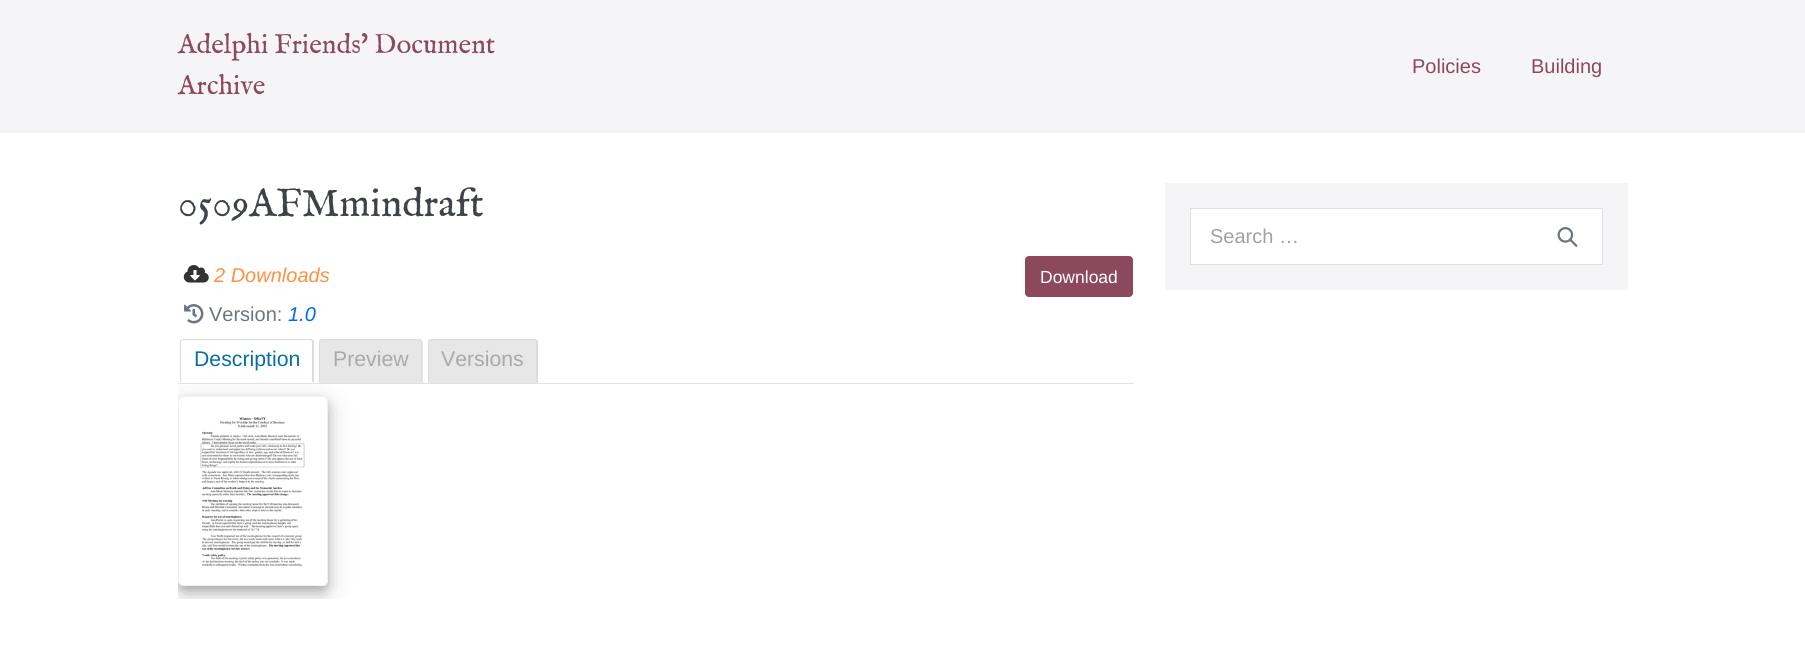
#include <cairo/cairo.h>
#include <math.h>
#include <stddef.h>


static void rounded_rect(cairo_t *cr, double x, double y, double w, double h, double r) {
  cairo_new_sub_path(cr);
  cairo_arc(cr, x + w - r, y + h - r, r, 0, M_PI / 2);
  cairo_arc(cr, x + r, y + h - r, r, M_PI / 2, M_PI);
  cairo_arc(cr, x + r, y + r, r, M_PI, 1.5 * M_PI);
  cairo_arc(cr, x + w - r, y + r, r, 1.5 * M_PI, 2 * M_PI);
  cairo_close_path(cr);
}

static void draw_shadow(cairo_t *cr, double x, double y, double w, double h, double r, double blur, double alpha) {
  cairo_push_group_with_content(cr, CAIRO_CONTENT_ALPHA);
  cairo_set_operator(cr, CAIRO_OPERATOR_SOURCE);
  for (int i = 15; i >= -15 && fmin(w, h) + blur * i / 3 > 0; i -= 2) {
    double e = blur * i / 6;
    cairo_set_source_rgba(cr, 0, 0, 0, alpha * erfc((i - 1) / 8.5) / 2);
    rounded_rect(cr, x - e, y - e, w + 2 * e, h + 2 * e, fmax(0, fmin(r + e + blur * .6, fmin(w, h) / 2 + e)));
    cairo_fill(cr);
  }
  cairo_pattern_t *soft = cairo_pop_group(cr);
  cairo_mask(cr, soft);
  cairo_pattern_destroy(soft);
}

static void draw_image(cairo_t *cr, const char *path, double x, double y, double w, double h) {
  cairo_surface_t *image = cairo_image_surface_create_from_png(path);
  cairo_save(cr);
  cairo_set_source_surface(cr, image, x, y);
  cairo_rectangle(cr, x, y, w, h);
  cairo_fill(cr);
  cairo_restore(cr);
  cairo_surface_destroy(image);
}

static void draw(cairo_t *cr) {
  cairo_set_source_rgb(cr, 1, 1, 1);
  cairo_paint(cr);
  cairo_set_source_rgb(cr, 245 / 255.0, 245 / 255.0, 247 / 255.0);
  cairo_rectangle(cr, 0, 0, 1805, 133);
  cairo_fill(cr);
  draw_image(cr, "images/1.png", 183, 265, 26, 18);
  draw_image(cr, "images/2.png", 184, 304, 20, 20);
  cairo_set_source_rgb(cr, 141 / 255.0, 73 / 255.0, 92 / 255.0);
  rounded_rect(cr, 1024.5, 255.5, 109, 42, 4.5);
  cairo_fill_preserve(cr);
  cairo_set_source_rgb(cr, 1, 1, 1);
  cairo_set_line_width(cr, 1);
  cairo_stroke(cr);
  cairo_set_source_rgb(cr, 220 / 255.0, 220 / 255.0, 220 / 255.0);
  cairo_set_fill_rule(cr, CAIRO_FILL_RULE_EVEN_ODD);
  cairo_new_path(cr);
  cairo_move_to(cr, 184, 339);
  cairo_line_to(cr, 310, 339);
  cairo_curve_to(cr, 312, 339, 314, 340, 314, 342);
  cairo_line_to(cr, 314, 382);
  cairo_line_to(cr, 180, 382);
  cairo_line_to(cr, 180, 342);
  cairo_curve_to(cr, 180, 340, 182, 339, 184, 339);
  cairo_close_path(cr);
  cairo_move_to(cr, 184, 340);
  cairo_line_to(cr, 310, 340);
  cairo_curve_to(cr, 311, 340, 312, 341, 312, 342);
  cairo_line_to(cr, 312, 382);
  cairo_line_to(cr, 181, 382);
  cairo_line_to(cr, 181, 342);
  cairo_curve_to(cr, 181, 341, 182, 340, 184, 340);
  cairo_close_path(cr);
  cairo_fill(cr);
  cairo_set_source_rgb(cr, 231 / 255.0, 231 / 255.0, 231 / 255.0);
  cairo_new_path(cr);
  cairo_move_to(cr, 323, 339);
  cairo_line_to(cr, 419, 339);
  cairo_curve_to(cr, 421, 339, 423, 341, 423, 343);
  cairo_line_to(cr, 423, 383);
  cairo_line_to(cr, 319, 383);
  cairo_line_to(cr, 319, 343);
  cairo_curve_to(cr, 319, 341, 321, 339, 323, 339);
  cairo_close_path(cr);
  cairo_fill(cr);
  cairo_set_source_rgb(cr, 220 / 255.0, 220 / 255.0, 220 / 255.0);
  cairo_new_path(cr);
  cairo_move_to(cr, 322, 339);
  cairo_line_to(cr, 419, 339);
  cairo_curve_to(cr, 421, 339, 422, 340, 422, 342);
  cairo_line_to(cr, 422, 382);
  cairo_line_to(cr, 319, 382);
  cairo_line_to(cr, 319, 342);
  cairo_curve_to(cr, 319, 340, 320, 339, 322, 339);
  cairo_close_path(cr);
  cairo_move_to(cr, 322, 340);
  cairo_line_to(cr, 419, 340);
  cairo_curve_to(cr, 420, 340, 421, 341, 421, 342);
  cairo_line_to(cr, 421, 382);
  cairo_line_to(cr, 320, 382);
  cairo_line_to(cr, 320, 342);
  cairo_curve_to(cr, 320, 341, 321, 340, 322, 340);
  cairo_close_path(cr);
  cairo_fill(cr);
  cairo_set_source_rgb(cr, 231 / 255.0, 231 / 255.0, 231 / 255.0);
  cairo_new_path(cr);
  cairo_move_to(cr, 432, 339);
  cairo_line_to(cr, 534, 339);
  cairo_curve_to(cr, 536, 339, 538, 341, 538, 343);
  cairo_line_to(cr, 538, 383);
  cairo_line_to(cr, 428, 383);
  cairo_line_to(cr, 428, 343);
  cairo_curve_to(cr, 428, 341, 430, 339, 432, 339);
  cairo_close_path(cr);
  cairo_fill(cr);
  cairo_set_source_rgb(cr, 220 / 255.0, 220 / 255.0, 220 / 255.0);
  cairo_new_path(cr);
  cairo_move_to(cr, 431, 339);
  cairo_line_to(cr, 534, 339);
  cairo_curve_to(cr, 536, 339, 538, 340, 538, 342);
  cairo_line_to(cr, 538, 382);
  cairo_line_to(cr, 428, 382);
  cairo_line_to(cr, 428, 342);
  cairo_curve_to(cr, 428, 340, 429, 339, 431, 339);
  cairo_close_path(cr);
  cairo_move_to(cr, 431, 340);
  cairo_line_to(cr, 534, 340);
  cairo_curve_to(cr, 535, 340, 536, 341, 536, 342);
  cairo_line_to(cr, 536, 382);
  cairo_line_to(cr, 429, 382);
  cairo_line_to(cr, 429, 342);
  cairo_curve_to(cr, 429, 341, 430, 340, 431, 340);
  cairo_close_path(cr);
  cairo_fill(cr);
  cairo_set_source_rgb(cr, 226 / 255.0, 226 / 255.0, 226 / 255.0);
  cairo_rectangle(cr, 178, 383, 956, 1);
  cairo_fill(cr);
  cairo_save(cr);
  cairo_set_fill_rule(cr, CAIRO_FILL_RULE_WINDING);
  cairo_rectangle(cr, 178, 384, 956, 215);
  cairo_clip(cr);
  cairo_set_fill_rule(cr, CAIRO_FILL_RULE_EVEN_ODD);
  cairo_new_path(cr);
  cairo_move_to(cr, 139, 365);
  cairo_line_to(cr, 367, 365);
  cairo_line_to(cr, 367, 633);
  cairo_line_to(cr, 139, 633);
  cairo_close_path(cr);
  cairo_move_to(cr, 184, 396);
  cairo_line_to(cr, 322, 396);
  cairo_curve_to(cr, 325.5, 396, 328, 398.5, 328, 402);
  cairo_line_to(cr, 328, 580);
  cairo_curve_to(cr, 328, 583.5, 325.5, 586, 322, 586);
  cairo_line_to(cr, 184, 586);
  cairo_curve_to(cr, 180.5, 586, 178, 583.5, 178, 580);
  cairo_line_to(cr, 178, 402);
  cairo_curve_to(cr, 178, 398.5, 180.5, 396, 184, 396);
  cairo_close_path(cr);
  cairo_clip(cr);
  cairo_set_source_rgb(cr, 0, 0, 0);
  draw_shadow(cr, 178, 404, 150, 190, 6, 12.5, 0.19);
  cairo_restore(cr);
  cairo_save(cr);
  cairo_set_fill_rule(cr, CAIRO_FILL_RULE_WINDING);
  cairo_rectangle(cr, 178, 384, 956, 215);
  cairo_clip(cr);
  cairo_set_fill_rule(cr, CAIRO_FILL_RULE_EVEN_ODD);
  cairo_new_path(cr);
  cairo_move_to(cr, 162, 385);
  cairo_line_to(cr, 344, 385);
  cairo_line_to(cr, 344, 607);
  cairo_line_to(cr, 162, 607);
  cairo_close_path(cr);
  cairo_move_to(cr, 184, 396);
  cairo_line_to(cr, 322, 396);
  cairo_curve_to(cr, 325.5, 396, 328, 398.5, 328, 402);
  cairo_line_to(cr, 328, 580);
  cairo_curve_to(cr, 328, 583.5, 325.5, 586, 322, 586);
  cairo_line_to(cr, 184, 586);
  cairo_curve_to(cr, 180.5, 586, 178, 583.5, 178, 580);
  cairo_line_to(cr, 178, 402);
  cairo_curve_to(cr, 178, 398.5, 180.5, 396, 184, 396);
  cairo_close_path(cr);
  cairo_clip(cr);
  cairo_set_source_rgb(cr, 0, 0, 0);
  draw_shadow(cr, 178, 401, 150, 190, 6, 5, 0.2);
  cairo_restore(cr);
  rounded_rect(cr, 178.5, 396.5, 149, 189, 5.5);
  cairo_set_source_rgb(cr, 241 / 255.0, 241 / 255.0, 241 / 255.0);
  cairo_stroke(cr);
  draw_image(cr, "images/3.png", 200, 417, 105, 150);
  cairo_set_source_rgb(cr, 245 / 255.0, 245 / 255.0, 247 / 255.0);
  cairo_rectangle(cr, 1165, 183, 463, 107);
  cairo_fill(cr);
  cairo_set_source_rgb(cr, 1, 1, 1);
  cairo_rectangle(cr, 1190.5, 208.5, 412, 56);
  cairo_fill_preserve(cr);
  cairo_set_source_rgb(cr, 222 / 255.0, 222 / 255.0, 229 / 255.0);
  cairo_stroke(cr);
  draw_image(cr, "images/4.png", 1557, 227, 21, 20);
  cairo_select_font_face(cr, "IM FELL English", CAIRO_FONT_SLANT_NORMAL, CAIRO_FONT_WEIGHT_NORMAL);
  cairo_set_font_size(cr, 27.5);
  cairo_set_source_rgb(cr, 141 / 255.0, 73 / 255.0, 92 / 255.0);
  cairo_move_to(cr, 178, 53);
  cairo_show_text(cr, "Adelphi Friends' Document");
  cairo_move_to(cr, 178, 94);
  cairo_show_text(cr, "Archive");
  cairo_select_font_face(cr, "Liberation Sans", CAIRO_FONT_SLANT_NORMAL, CAIRO_FONT_WEIGHT_NORMAL);
  cairo_set_font_size(cr, 20);
  cairo_move_to(cr, 1412, 73);
  cairo_show_text(cr, "Policies");
  cairo_move_to(cr, 1531, 73);
  cairo_show_text(cr, "Building");
  cairo_select_font_face(cr, "IM FELL English", CAIRO_FONT_SLANT_NORMAL, CAIRO_FONT_WEIGHT_NORMAL);
  cairo_set_font_size(cr, 40);
  cairo_set_source_rgb(cr, 62 / 255.0, 67 / 255.0, 73 / 255.0);
  cairo_move_to(cr, 178, 216);
  cairo_show_text(cr, "0509AFMmindraft");
  cairo_select_font_face(cr, "Liberation Sans", CAIRO_FONT_SLANT_ITALIC, CAIRO_FONT_WEIGHT_NORMAL);
  cairo_set_font_size(cr, 20);
  cairo_set_source_rgb(cr, 1, 145 / 255.0, 64 / 255.0);
  cairo_move_to(cr, 214, 282);
  cairo_show_text(cr, "2 Downloads");
  cairo_select_font_face(cr, "Liberation Sans", CAIRO_FONT_SLANT_NORMAL, CAIRO_FONT_WEIGHT_NORMAL);
  cairo_set_source_rgb(cr, 109 / 255.0, 118 / 255.0, 128 / 255.0);
  cairo_move_to(cr, 209, 321);
  cairo_show_text(cr, "Version:");
  cairo_select_font_face(cr, "Liberation Sans", CAIRO_FONT_SLANT_ITALIC, CAIRO_FONT_WEIGHT_NORMAL);
  cairo_set_source_rgb(cr, 0, 102 / 255.0, 1);
  cairo_move_to(cr, 288, 321);
  cairo_show_text(cr, "1.0");
  cairo_select_font_face(cr, "Liberation Sans", CAIRO_FONT_SLANT_NORMAL, CAIRO_FONT_WEIGHT_NORMAL);
  cairo_set_font_size(cr, 17.5);
  cairo_set_source_rgb(cr, 1, 1, 1);
  cairo_move_to(cr, 1040, 283);
  cairo_show_text(cr, "Download");
  cairo_set_font_size(cr, 21.25);
  cairo_set_source_rgb(cr, 8 / 255.0, 111 / 255.0, 161 / 255.0);
  cairo_move_to(cr, 194, 366);
  cairo_show_text(cr, "Description");
  cairo_set_source_rgb(cr, 170 / 255.0, 170 / 255.0, 170 / 255.0);
  cairo_move_to(cr, 333, 366);
  cairo_show_text(cr, "Preview");
  cairo_move_to(cr, 441, 366);
  cairo_show_text(cr, "Versions");
  cairo_set_font_size(cr, 20);
  cairo_set_source_rgb(cr, 159 / 255.0, 161 / 255.0, 164 / 255.0);
  cairo_move_to(cr, 1210, 243);
  cairo_show_text(cr, "Search …");
}

int main(void) {
  cairo_surface_t *surface = cairo_image_surface_create(CAIRO_FORMAT_RGB24, 1805, 658);
  cairo_t *cr = cairo_create(surface);
  cairo_font_options_t *options = cairo_font_options_create();
  cairo_font_options_set_hint_metrics(options, CAIRO_HINT_METRICS_OFF);
  cairo_font_options_set_hint_style(options, CAIRO_HINT_STYLE_NONE);
  cairo_set_font_options(cr, options);
  cairo_set_miter_limit(cr, 4);
  draw(cr);
  cairo_surface_write_to_png(surface, "out.png");
  cairo_font_options_destroy(options);
  cairo_destroy(cr);
  cairo_surface_destroy(surface);
  return 0;
}
